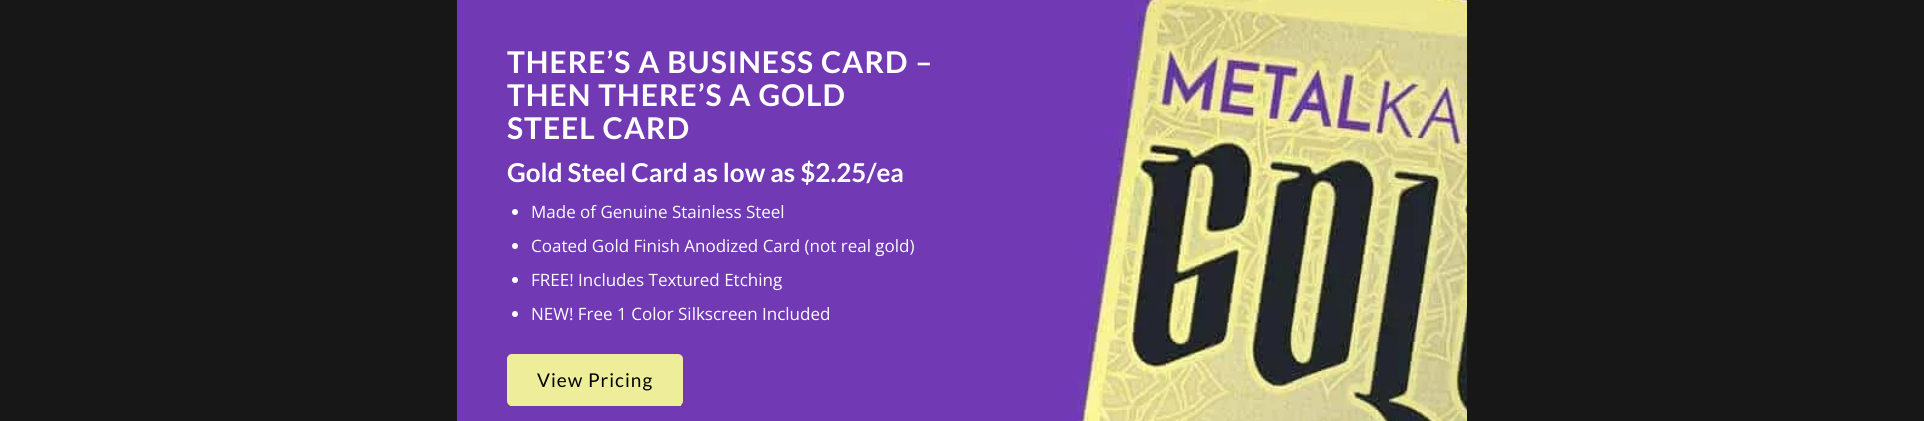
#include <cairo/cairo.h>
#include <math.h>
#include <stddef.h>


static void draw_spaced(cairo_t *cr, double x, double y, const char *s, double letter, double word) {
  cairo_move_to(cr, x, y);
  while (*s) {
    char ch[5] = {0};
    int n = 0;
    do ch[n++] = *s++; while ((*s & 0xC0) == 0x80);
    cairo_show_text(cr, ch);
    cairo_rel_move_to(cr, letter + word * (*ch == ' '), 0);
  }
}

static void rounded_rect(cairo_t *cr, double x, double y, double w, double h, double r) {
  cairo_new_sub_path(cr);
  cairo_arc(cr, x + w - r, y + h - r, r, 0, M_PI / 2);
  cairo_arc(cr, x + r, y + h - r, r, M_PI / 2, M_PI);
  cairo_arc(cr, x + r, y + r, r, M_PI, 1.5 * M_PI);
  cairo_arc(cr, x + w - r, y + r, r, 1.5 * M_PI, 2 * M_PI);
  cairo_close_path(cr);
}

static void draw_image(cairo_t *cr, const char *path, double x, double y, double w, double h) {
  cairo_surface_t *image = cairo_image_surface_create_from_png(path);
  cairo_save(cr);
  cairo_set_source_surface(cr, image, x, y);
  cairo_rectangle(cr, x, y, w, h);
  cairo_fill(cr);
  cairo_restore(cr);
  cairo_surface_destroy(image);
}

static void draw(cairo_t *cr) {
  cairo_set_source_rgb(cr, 23 / 255.0, 23 / 255.0, 23 / 255.0);
  cairo_paint(cr);
  draw_image(cr, "images/1.png", 457, 0, 1010, 421);
  cairo_set_source_rgb(cr, 1, 1, 1);
  cairo_arc(cr, 515, 212, 3, 0, 2 * M_PI);
  cairo_fill(cr);
  cairo_arc(cr, 515, 246, 3, 0, 2 * M_PI);
  cairo_fill(cr);
  cairo_arc(cr, 515, 280, 3, 0, 2 * M_PI);
  cairo_fill(cr);
  cairo_arc(cr, 515, 314, 3, 0, 2 * M_PI);
  cairo_fill(cr);
  cairo_set_source_rgb(cr, 237 / 255.0, 237 / 255.0, 154 / 255.0);
  rounded_rect(cr, 507, 354, 176, 52, 5);
  cairo_fill(cr);
  cairo_rectangle(cr, 510, 405, 171, 1);
  cairo_fill(cr);
  cairo_select_font_face(cr, "Lato", CAIRO_FONT_SLANT_NORMAL, CAIRO_FONT_WEIGHT_BOLD);
  cairo_set_font_size(cr, 30);
  cairo_set_source_rgb(cr, 1, 1, 1);
  draw_spaced(cr, 507, 73, "THERE’S A BUSINESS CARD –", 1, 0);
  draw_spaced(cr, 507, 106, "THEN THERE’S A GOLD", 1, 0);
  draw_spaced(cr, 507, 139, "STEEL CARD", 1, 0);
  cairo_set_font_size(cr, 26);
  cairo_move_to(cr, 507, 182);
  cairo_show_text(cr, "Gold Steel Card as low as $2.25/ea");
  cairo_select_font_face(cr, "Open Sans", CAIRO_FONT_SLANT_NORMAL, CAIRO_FONT_WEIGHT_NORMAL);
  cairo_set_font_size(cr, 17);
  cairo_move_to(cr, 531, 218);
  cairo_show_text(cr, "Made of Genuine Stainless Steel");
  cairo_move_to(cr, 531, 252);
  cairo_show_text(cr, "Coated Gold Finish Anodized Card (not real gold)");
  cairo_move_to(cr, 531, 286);
  cairo_show_text(cr, "FREE! Includes Textured Etching");
  cairo_move_to(cr, 531, 320);
  cairo_show_text(cr, "NEW! Free 1 Color Silkscreen Included");
  cairo_select_font_face(cr, "Lato", CAIRO_FONT_SLANT_NORMAL, CAIRO_FONT_WEIGHT_NORMAL);
  cairo_set_font_size(cr, 19);
  cairo_set_source_rgb(cr, 0, 0, 0);
  draw_spaced(cr, 537, 387, "View Pricing", 1, 0);
}

int main(void) {
  cairo_surface_t *surface = cairo_image_surface_create(CAIRO_FORMAT_RGB24, 1924, 421);
  cairo_t *cr = cairo_create(surface);
  cairo_font_options_t *options = cairo_font_options_create();
  cairo_font_options_set_hint_metrics(options, CAIRO_HINT_METRICS_OFF);
  cairo_font_options_set_hint_style(options, CAIRO_HINT_STYLE_NONE);
  cairo_set_font_options(cr, options);
  cairo_set_miter_limit(cr, 4);
  draw(cr);
  cairo_surface_write_to_png(surface, "out.png");
  cairo_font_options_destroy(options);
  cairo_destroy(cr);
  cairo_surface_destroy(surface);
  return 0;
}
